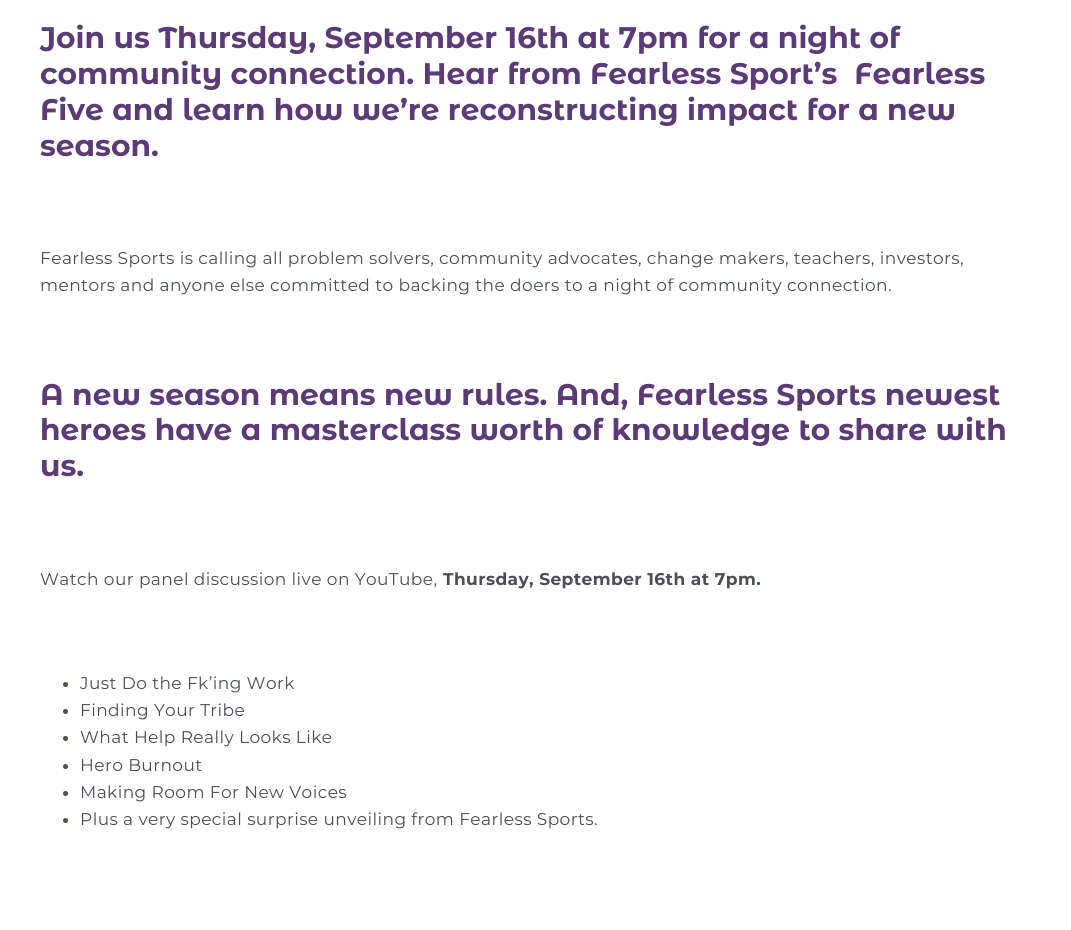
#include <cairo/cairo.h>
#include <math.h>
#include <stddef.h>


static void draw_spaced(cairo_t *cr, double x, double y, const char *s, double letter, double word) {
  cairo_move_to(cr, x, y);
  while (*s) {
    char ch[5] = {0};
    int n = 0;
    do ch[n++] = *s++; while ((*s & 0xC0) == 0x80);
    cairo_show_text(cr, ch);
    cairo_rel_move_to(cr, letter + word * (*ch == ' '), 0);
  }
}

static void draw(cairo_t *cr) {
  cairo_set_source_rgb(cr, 1, 1, 1);
  cairo_paint(cr);
  cairo_set_source_rgb(cr, 73 / 255.0, 79 / 255.0, 86 / 255.0);
  cairo_arc(cr, 65.5, 684.5, 2.5, 0, 2 * M_PI);
  cairo_fill(cr);
  cairo_arc(cr, 65.5, 711.5, 2.5, 0, 2 * M_PI);
  cairo_fill(cr);
  cairo_arc(cr, 65.5, 738.5, 2.5, 0, 2 * M_PI);
  cairo_fill(cr);
  cairo_arc(cr, 65.5, 766.5, 2.5, 0, 2 * M_PI);
  cairo_fill(cr);
  cairo_arc(cr, 65.5, 793.5, 2.5, 0, 2 * M_PI);
  cairo_fill(cr);
  cairo_arc(cr, 65.5, 820.5, 2.5, 0, 2 * M_PI);
  cairo_fill(cr);
  cairo_select_font_face(cr, "Montserrat Alternates", CAIRO_FONT_SLANT_NORMAL, CAIRO_FONT_WEIGHT_BOLD);
  cairo_set_font_size(cr, 29.75);
  cairo_set_source_rgb(cr, 92 / 255.0, 57 / 255.0, 119 / 255.0);
  cairo_move_to(cr, 40, 48);
  cairo_show_text(cr, "Join us Thursday, September 16th at 7pm for a night of");
  cairo_move_to(cr, 40, 84);
  cairo_show_text(cr, "community connection. Hear from Fearless Sport’s  Fearless");
  cairo_move_to(cr, 40, 120);
  cairo_show_text(cr, "Five and learn how we’re reconstructing impact for a new");
  cairo_move_to(cr, 40, 156);
  cairo_show_text(cr, "season.");
  cairo_select_font_face(cr, "Montserrat Thin", CAIRO_FONT_SLANT_NORMAL, CAIRO_FONT_WEIGHT_NORMAL);
  cairo_set_font_size(cr, 17);
  cairo_set_source_rgb(cr, 73 / 255.0, 79 / 255.0, 86 / 255.0);
  draw_spaced(cr, 40, 264, "Fearless Sports is calling all problem solvers, community advocates, change makers, teachers, investors,", 0.42, 0);
  draw_spaced(cr, 40, 291, "mentors and anyone else committed to backing the doers to a night of community connection.", 0.42, 0);
  cairo_select_font_face(cr, "Montserrat Alternates", CAIRO_FONT_SLANT_NORMAL, CAIRO_FONT_WEIGHT_BOLD);
  cairo_set_font_size(cr, 29.75);
  cairo_set_source_rgb(cr, 92 / 255.0, 57 / 255.0, 119 / 255.0);
  cairo_move_to(cr, 40, 405);
  cairo_show_text(cr, "A new season means new rules. And, Fearless Sports newest");
  cairo_move_to(cr, 40, 440);
  cairo_show_text(cr, "heroes have a masterclass worth of knowledge to share with");
  cairo_move_to(cr, 40, 476);
  cairo_show_text(cr, "us.");
  cairo_select_font_face(cr, "Montserrat Thin", CAIRO_FONT_SLANT_NORMAL, CAIRO_FONT_WEIGHT_NORMAL);
  cairo_set_font_size(cr, 17);
  cairo_set_source_rgb(cr, 73 / 255.0, 79 / 255.0, 86 / 255.0);
  draw_spaced(cr, 40, 585, "Watch our panel discussion live on YouTube,", 0.42, 0);
  cairo_select_font_face(cr, "Montserrat", CAIRO_FONT_SLANT_NORMAL, CAIRO_FONT_WEIGHT_BOLD);
  draw_spaced(cr, 443, 585, "Thursday, September 16th at 7pm.", 0.42, 0);
  cairo_select_font_face(cr, "Montserrat Thin", CAIRO_FONT_SLANT_NORMAL, CAIRO_FONT_WEIGHT_NORMAL);
  draw_spaced(cr, 80, 689, "Just Do the Fk’ing Work", 0.42, 0);
  draw_spaced(cr, 80, 716, "Finding Your Tribe", 0.42, 0);
  draw_spaced(cr, 80, 743, "What Help Really Looks Like", 0.42, 0);
  draw_spaced(cr, 80, 771, "Hero Burnout", 0.42, 0);
  draw_spaced(cr, 80, 798, "Making Room For New Voices", 0.42, 0);
  draw_spaced(cr, 80, 825, "Plus a very special surprise unveiling from Fearless Sports.", 0.42, 0);
}

int main(void) {
  cairo_surface_t *surface = cairo_image_surface_create(CAIRO_FORMAT_RGB24, 1071, 930);
  cairo_t *cr = cairo_create(surface);
  cairo_font_options_t *options = cairo_font_options_create();
  cairo_font_options_set_hint_metrics(options, CAIRO_HINT_METRICS_OFF);
  cairo_font_options_set_hint_style(options, CAIRO_HINT_STYLE_NONE);
  cairo_set_font_options(cr, options);
  cairo_set_miter_limit(cr, 4);
  draw(cr);
  cairo_surface_write_to_png(surface, "out.png");
  cairo_font_options_destroy(options);
  cairo_destroy(cr);
  cairo_surface_destroy(surface);
  return 0;
}
